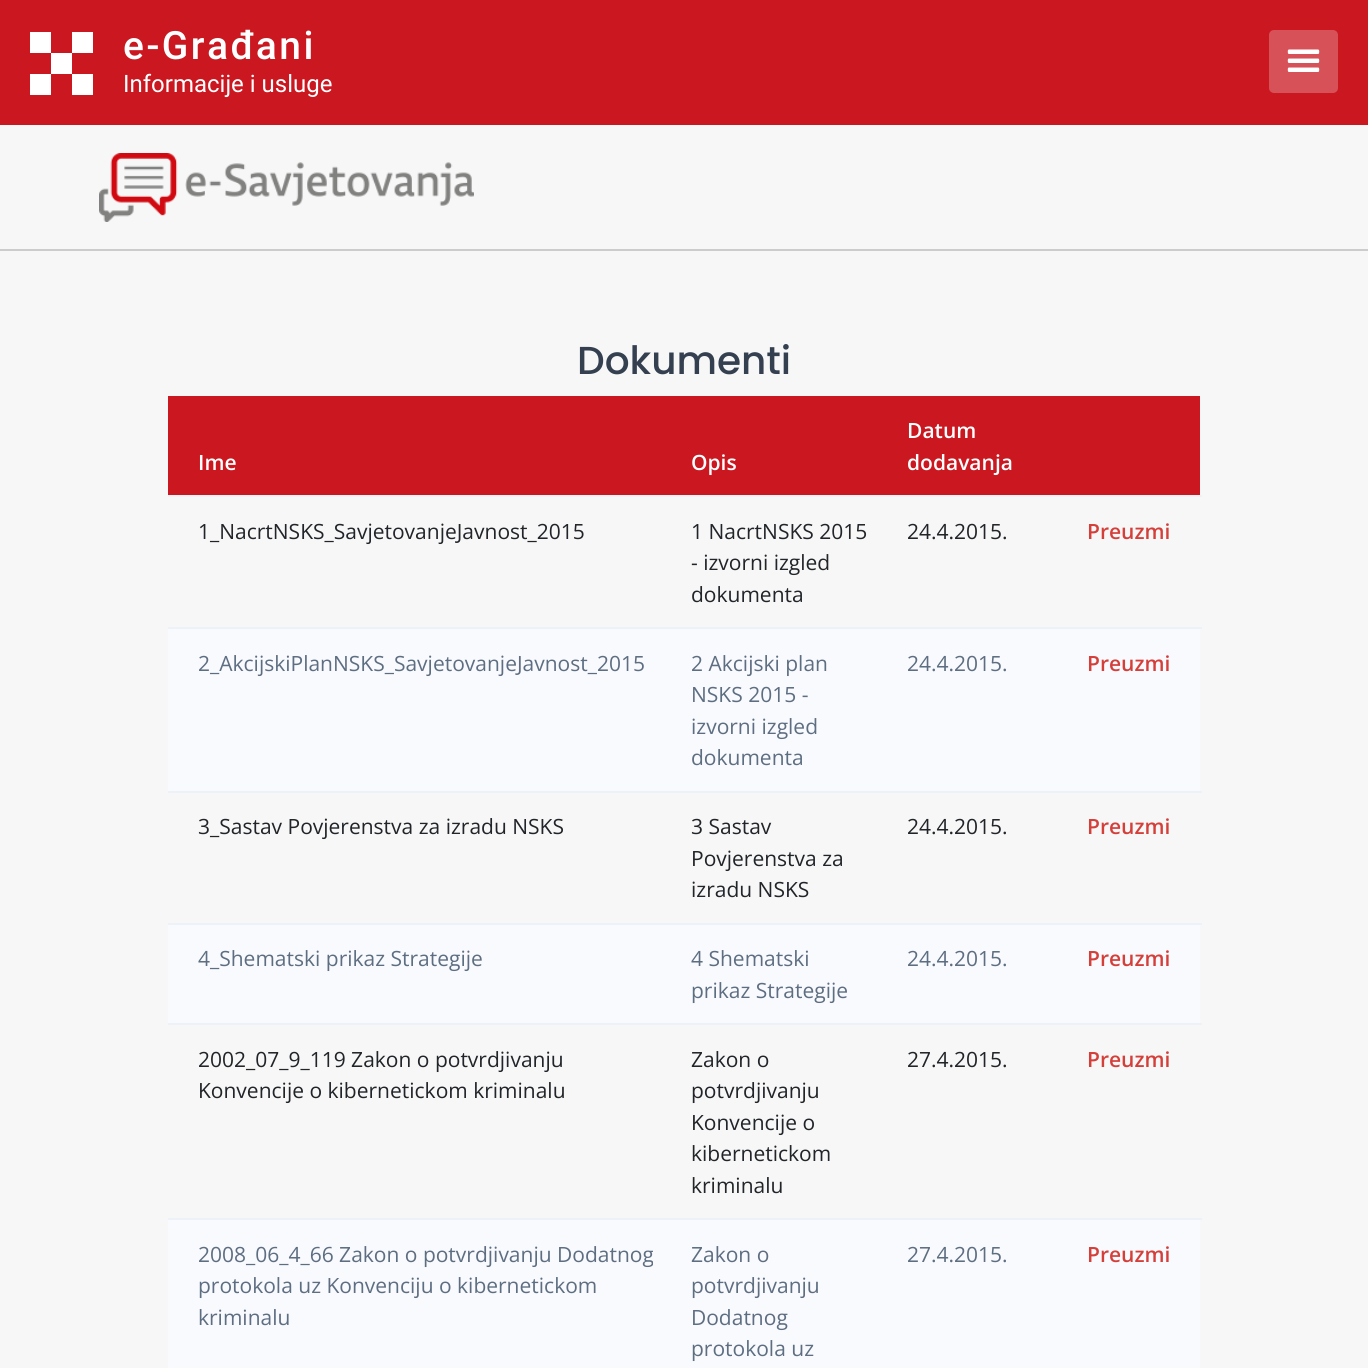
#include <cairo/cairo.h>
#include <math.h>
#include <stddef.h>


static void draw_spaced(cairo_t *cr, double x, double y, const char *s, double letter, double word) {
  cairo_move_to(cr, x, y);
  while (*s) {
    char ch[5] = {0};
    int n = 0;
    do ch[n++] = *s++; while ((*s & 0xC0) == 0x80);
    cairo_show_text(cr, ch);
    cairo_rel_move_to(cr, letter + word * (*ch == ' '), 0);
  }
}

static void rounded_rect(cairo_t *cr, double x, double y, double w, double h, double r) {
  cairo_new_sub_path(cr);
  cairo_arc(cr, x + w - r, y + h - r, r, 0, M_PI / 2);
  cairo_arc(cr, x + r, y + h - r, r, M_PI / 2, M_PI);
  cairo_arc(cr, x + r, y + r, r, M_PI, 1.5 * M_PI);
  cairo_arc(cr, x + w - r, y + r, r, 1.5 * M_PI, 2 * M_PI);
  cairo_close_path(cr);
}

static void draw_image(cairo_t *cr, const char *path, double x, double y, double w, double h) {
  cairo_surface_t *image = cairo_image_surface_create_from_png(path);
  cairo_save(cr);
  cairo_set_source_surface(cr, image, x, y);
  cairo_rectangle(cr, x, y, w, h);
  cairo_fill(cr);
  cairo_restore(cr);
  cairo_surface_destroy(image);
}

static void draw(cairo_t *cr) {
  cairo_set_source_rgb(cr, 247 / 255.0, 247 / 255.0, 247 / 255.0);
  cairo_paint(cr);
  cairo_set_source_rgb(cr, 204 / 255.0, 204 / 255.0, 204 / 255.0);
  cairo_rectangle(cr, 0, 249, 1368, 2);
  cairo_fill(cr);
  cairo_set_source_rgb(cr, 202 / 255.0, 23 / 255.0, 32 / 255.0);
  cairo_rectangle(cr, 0, 0, 1368, 125);
  cairo_fill(cr);
  cairo_set_source_rgb(cr, 1, 1, 1);
  cairo_rectangle(cr, 30, 32, 21, 21);
  cairo_fill(cr);
  cairo_rectangle(cr, 72, 32, 21, 21);
  cairo_fill(cr);
  cairo_rectangle(cr, 30, 74, 21, 21);
  cairo_fill(cr);
  cairo_rectangle(cr, 72, 74, 21, 21);
  cairo_fill(cr);
  cairo_rectangle(cr, 51, 53, 21, 21);
  cairo_fill(cr);
  cairo_set_source_rgb(cr, 215 / 255.0, 81 / 255.0, 88 / 255.0);
  rounded_rect(cr, 1269, 30, 69, 63, 5);
  cairo_fill(cr);
  draw_image(cr, "images/1.png", 1287, 49, 33, 23);
  draw_image(cr, "images/2.png", 99, 153, 375, 69);
  cairo_set_source_rgb(cr, 202 / 255.0, 23 / 255.0, 32 / 255.0);
  cairo_rectangle(cr, 168, 396, 1032, 99);
  cairo_fill(cr);
  cairo_set_source_rgb(cr, 237 / 255.0, 242 / 255.0, 249 / 255.0);
  cairo_rectangle(cr, 168, 495, 1034, 2);
  cairo_fill(cr);
  cairo_rectangle(cr, 168, 627, 1034, 2);
  cairo_fill(cr);
  cairo_set_source_rgb(cr, 249 / 255.0, 250 / 255.0, 253 / 255.0);
  cairo_rectangle(cr, 168, 629, 1032, 162);
  cairo_fill(cr);
  cairo_set_source_rgb(cr, 237 / 255.0, 242 / 255.0, 249 / 255.0);
  cairo_rectangle(cr, 168, 791, 1034, 2);
  cairo_fill(cr);
  cairo_rectangle(cr, 168, 923, 1034, 2);
  cairo_fill(cr);
  cairo_set_source_rgb(cr, 249 / 255.0, 250 / 255.0, 253 / 255.0);
  cairo_rectangle(cr, 168, 925, 1032, 98);
  cairo_fill(cr);
  cairo_set_source_rgb(cr, 237 / 255.0, 242 / 255.0, 249 / 255.0);
  cairo_rectangle(cr, 168, 1023, 1034, 2);
  cairo_fill(cr);
  cairo_rectangle(cr, 168, 1218, 1034, 2);
  cairo_fill(cr);
  cairo_set_source_rgb(cr, 249 / 255.0, 250 / 255.0, 253 / 255.0);
  cairo_rectangle(cr, 168, 1220, 1032, 148);
  cairo_fill(cr);
  cairo_select_font_face(cr, "Roboto Medium", CAIRO_FONT_SLANT_NORMAL, CAIRO_FONT_WEIGHT_NORMAL);
  cairo_set_font_size(cr, 39);
  cairo_set_source_rgb(cr, 1, 1, 1);
  draw_spaced(cr, 123, 59, "e-Građani", 2.5, 0);
  cairo_select_font_face(cr, "Roboto", CAIRO_FONT_SLANT_NORMAL, CAIRO_FONT_WEIGHT_NORMAL);
  cairo_set_font_size(cr, 24);
  cairo_move_to(cr, 123, 92);
  cairo_show_text(cr, "Informacije i usluge");
  cairo_select_font_face(cr, "Poppins Medium", CAIRO_FONT_SLANT_NORMAL, CAIRO_FONT_WEIGHT_NORMAL);
  cairo_set_font_size(cr, 39);
  cairo_set_source_rgb(cr, 52 / 255.0, 64 / 255.0, 80 / 255.0);
  cairo_move_to(cr, 577, 374);
  cairo_show_text(cr, "Dokumenti");
  cairo_select_font_face(cr, "Open Sans SemiBold", CAIRO_FONT_SLANT_NORMAL, CAIRO_FONT_WEIGHT_NORMAL);
  cairo_set_font_size(cr, 21);
  cairo_set_source_rgb(cr, 1, 1, 1);
  cairo_move_to(cr, 198, 470);
  cairo_show_text(cr, "Ime");
  cairo_move_to(cr, 691, 470);
  cairo_show_text(cr, "Opis");
  cairo_move_to(cr, 907, 438);
  cairo_show_text(cr, "Datum");
  cairo_move_to(cr, 907, 470);
  cairo_show_text(cr, "dodavanja");
  cairo_select_font_face(cr, "Open Sans", CAIRO_FONT_SLANT_NORMAL, CAIRO_FONT_WEIGHT_NORMAL);
  cairo_set_source_rgb(cr, 33 / 255.0, 37 / 255.0, 41 / 255.0);
  cairo_move_to(cr, 198, 539);
  cairo_show_text(cr, "1_NacrtNSKS_SavjetovanjeJavnost_2015");
  cairo_move_to(cr, 691, 539);
  cairo_show_text(cr, "1 NacrtNSKS 2015");
  cairo_move_to(cr, 691, 570);
  cairo_show_text(cr, "- izvorni izgled");
  cairo_move_to(cr, 691, 602);
  cairo_show_text(cr, "dokumenta");
  cairo_move_to(cr, 907, 539);
  cairo_show_text(cr, "24.4.2015.");
  cairo_select_font_face(cr, "Open Sans SemiBold", CAIRO_FONT_SLANT_NORMAL, CAIRO_FONT_WEIGHT_NORMAL);
  cairo_set_source_rgb(cr, 212 / 255.0, 63 / 255.0, 58 / 255.0);
  cairo_move_to(cr, 1087, 539);
  cairo_show_text(cr, "Preuzmi");
  cairo_select_font_face(cr, "Open Sans", CAIRO_FONT_SLANT_NORMAL, CAIRO_FONT_WEIGHT_NORMAL);
  cairo_set_source_rgb(cr, 94 / 255.0, 110 / 255.0, 130 / 255.0);
  cairo_move_to(cr, 198, 671);
  cairo_show_text(cr, "2_AkcijskiPlanNSKS_SavjetovanjeJavnost_2015");
  cairo_move_to(cr, 691, 671);
  cairo_show_text(cr, "2 Akcijski plan");
  cairo_move_to(cr, 691, 702);
  cairo_show_text(cr, "NSKS 2015 -");
  cairo_move_to(cr, 691, 734);
  cairo_show_text(cr, "izvorni izgled");
  cairo_move_to(cr, 691, 765);
  cairo_show_text(cr, "dokumenta");
  cairo_move_to(cr, 907, 671);
  cairo_show_text(cr, "24.4.2015.");
  cairo_select_font_face(cr, "Open Sans SemiBold", CAIRO_FONT_SLANT_NORMAL, CAIRO_FONT_WEIGHT_NORMAL);
  cairo_set_source_rgb(cr, 212 / 255.0, 63 / 255.0, 58 / 255.0);
  cairo_move_to(cr, 1087, 671);
  cairo_show_text(cr, "Preuzmi");
  cairo_select_font_face(cr, "Open Sans", CAIRO_FONT_SLANT_NORMAL, CAIRO_FONT_WEIGHT_NORMAL);
  cairo_set_source_rgb(cr, 33 / 255.0, 37 / 255.0, 41 / 255.0);
  cairo_move_to(cr, 198, 834);
  cairo_show_text(cr, "3_Sastav Povjerenstva za izradu NSKS");
  cairo_move_to(cr, 691, 834);
  cairo_show_text(cr, "3 Sastav");
  cairo_move_to(cr, 691, 866);
  cairo_show_text(cr, "Povjerenstva za");
  cairo_move_to(cr, 691, 897);
  cairo_show_text(cr, "izradu NSKS");
  cairo_move_to(cr, 907, 834);
  cairo_show_text(cr, "24.4.2015.");
  cairo_select_font_face(cr, "Open Sans SemiBold", CAIRO_FONT_SLANT_NORMAL, CAIRO_FONT_WEIGHT_NORMAL);
  cairo_set_source_rgb(cr, 212 / 255.0, 63 / 255.0, 58 / 255.0);
  cairo_move_to(cr, 1087, 834);
  cairo_show_text(cr, "Preuzmi");
  cairo_select_font_face(cr, "Open Sans", CAIRO_FONT_SLANT_NORMAL, CAIRO_FONT_WEIGHT_NORMAL);
  cairo_set_source_rgb(cr, 94 / 255.0, 110 / 255.0, 130 / 255.0);
  cairo_move_to(cr, 198, 966);
  cairo_show_text(cr, "4_Shematski prikaz Strategije");
  cairo_move_to(cr, 691, 966);
  cairo_show_text(cr, "4 Shematski");
  cairo_move_to(cr, 691, 998);
  cairo_show_text(cr, "prikaz Strategije");
  cairo_move_to(cr, 907, 966);
  cairo_show_text(cr, "24.4.2015.");
  cairo_select_font_face(cr, "Open Sans SemiBold", CAIRO_FONT_SLANT_NORMAL, CAIRO_FONT_WEIGHT_NORMAL);
  cairo_set_source_rgb(cr, 212 / 255.0, 63 / 255.0, 58 / 255.0);
  cairo_move_to(cr, 1087, 966);
  cairo_show_text(cr, "Preuzmi");
  cairo_select_font_face(cr, "Open Sans", CAIRO_FONT_SLANT_NORMAL, CAIRO_FONT_WEIGHT_NORMAL);
  cairo_set_source_rgb(cr, 33 / 255.0, 37 / 255.0, 41 / 255.0);
  cairo_move_to(cr, 198, 1067);
  cairo_show_text(cr, "2002_07_9_119 Zakon o potvrdjivanju");
  cairo_move_to(cr, 198, 1098);
  cairo_show_text(cr, "Konvencije o kibernetickom kriminalu");
  cairo_move_to(cr, 691, 1067);
  cairo_show_text(cr, "Zakon o");
  cairo_move_to(cr, 691, 1098);
  cairo_show_text(cr, "potvrdjivanju");
  cairo_move_to(cr, 691, 1130);
  cairo_show_text(cr, "Konvencije o");
  cairo_move_to(cr, 691, 1161);
  cairo_show_text(cr, "kibernetickom");
  cairo_move_to(cr, 691, 1193);
  cairo_show_text(cr, "kriminalu");
  cairo_move_to(cr, 907, 1067);
  cairo_show_text(cr, "27.4.2015.");
  cairo_select_font_face(cr, "Open Sans SemiBold", CAIRO_FONT_SLANT_NORMAL, CAIRO_FONT_WEIGHT_NORMAL);
  cairo_set_source_rgb(cr, 212 / 255.0, 63 / 255.0, 58 / 255.0);
  cairo_move_to(cr, 1087, 1067);
  cairo_show_text(cr, "Preuzmi");
  cairo_select_font_face(cr, "Open Sans", CAIRO_FONT_SLANT_NORMAL, CAIRO_FONT_WEIGHT_NORMAL);
  cairo_set_source_rgb(cr, 94 / 255.0, 110 / 255.0, 130 / 255.0);
  cairo_move_to(cr, 198, 1262);
  cairo_show_text(cr, "2008_06_4_66 Zakon o potvrdjivanju Dodatnog");
  cairo_move_to(cr, 198, 1293);
  cairo_show_text(cr, "protokola uz Konvenciju o kibernetickom");
  cairo_move_to(cr, 198, 1325);
  cairo_show_text(cr, "kriminalu");
  cairo_move_to(cr, 691, 1262);
  cairo_show_text(cr, "Zakon o");
  cairo_move_to(cr, 691, 1293);
  cairo_show_text(cr, "potvrdjivanju");
  cairo_move_to(cr, 691, 1325);
  cairo_show_text(cr, "Dodatnog");
  cairo_move_to(cr, 691, 1356);
  cairo_show_text(cr, "protokola uz");
  cairo_move_to(cr, 907, 1262);
  cairo_show_text(cr, "27.4.2015.");
  cairo_select_font_face(cr, "Open Sans SemiBold", CAIRO_FONT_SLANT_NORMAL, CAIRO_FONT_WEIGHT_NORMAL);
  cairo_set_source_rgb(cr, 212 / 255.0, 63 / 255.0, 58 / 255.0);
  cairo_move_to(cr, 1087, 1262);
  cairo_show_text(cr, "Preuzmi");
}

int main(void) {
  cairo_surface_t *surface = cairo_image_surface_create(CAIRO_FORMAT_RGB24, 1368, 1368);
  cairo_t *cr = cairo_create(surface);
  cairo_font_options_t *options = cairo_font_options_create();
  cairo_font_options_set_hint_metrics(options, CAIRO_HINT_METRICS_OFF);
  cairo_font_options_set_hint_style(options, CAIRO_HINT_STYLE_NONE);
  cairo_set_font_options(cr, options);
  cairo_set_miter_limit(cr, 4);
  draw(cr);
  cairo_surface_write_to_png(surface, "out.png");
  cairo_font_options_destroy(options);
  cairo_destroy(cr);
  cairo_surface_destroy(surface);
  return 0;
}
